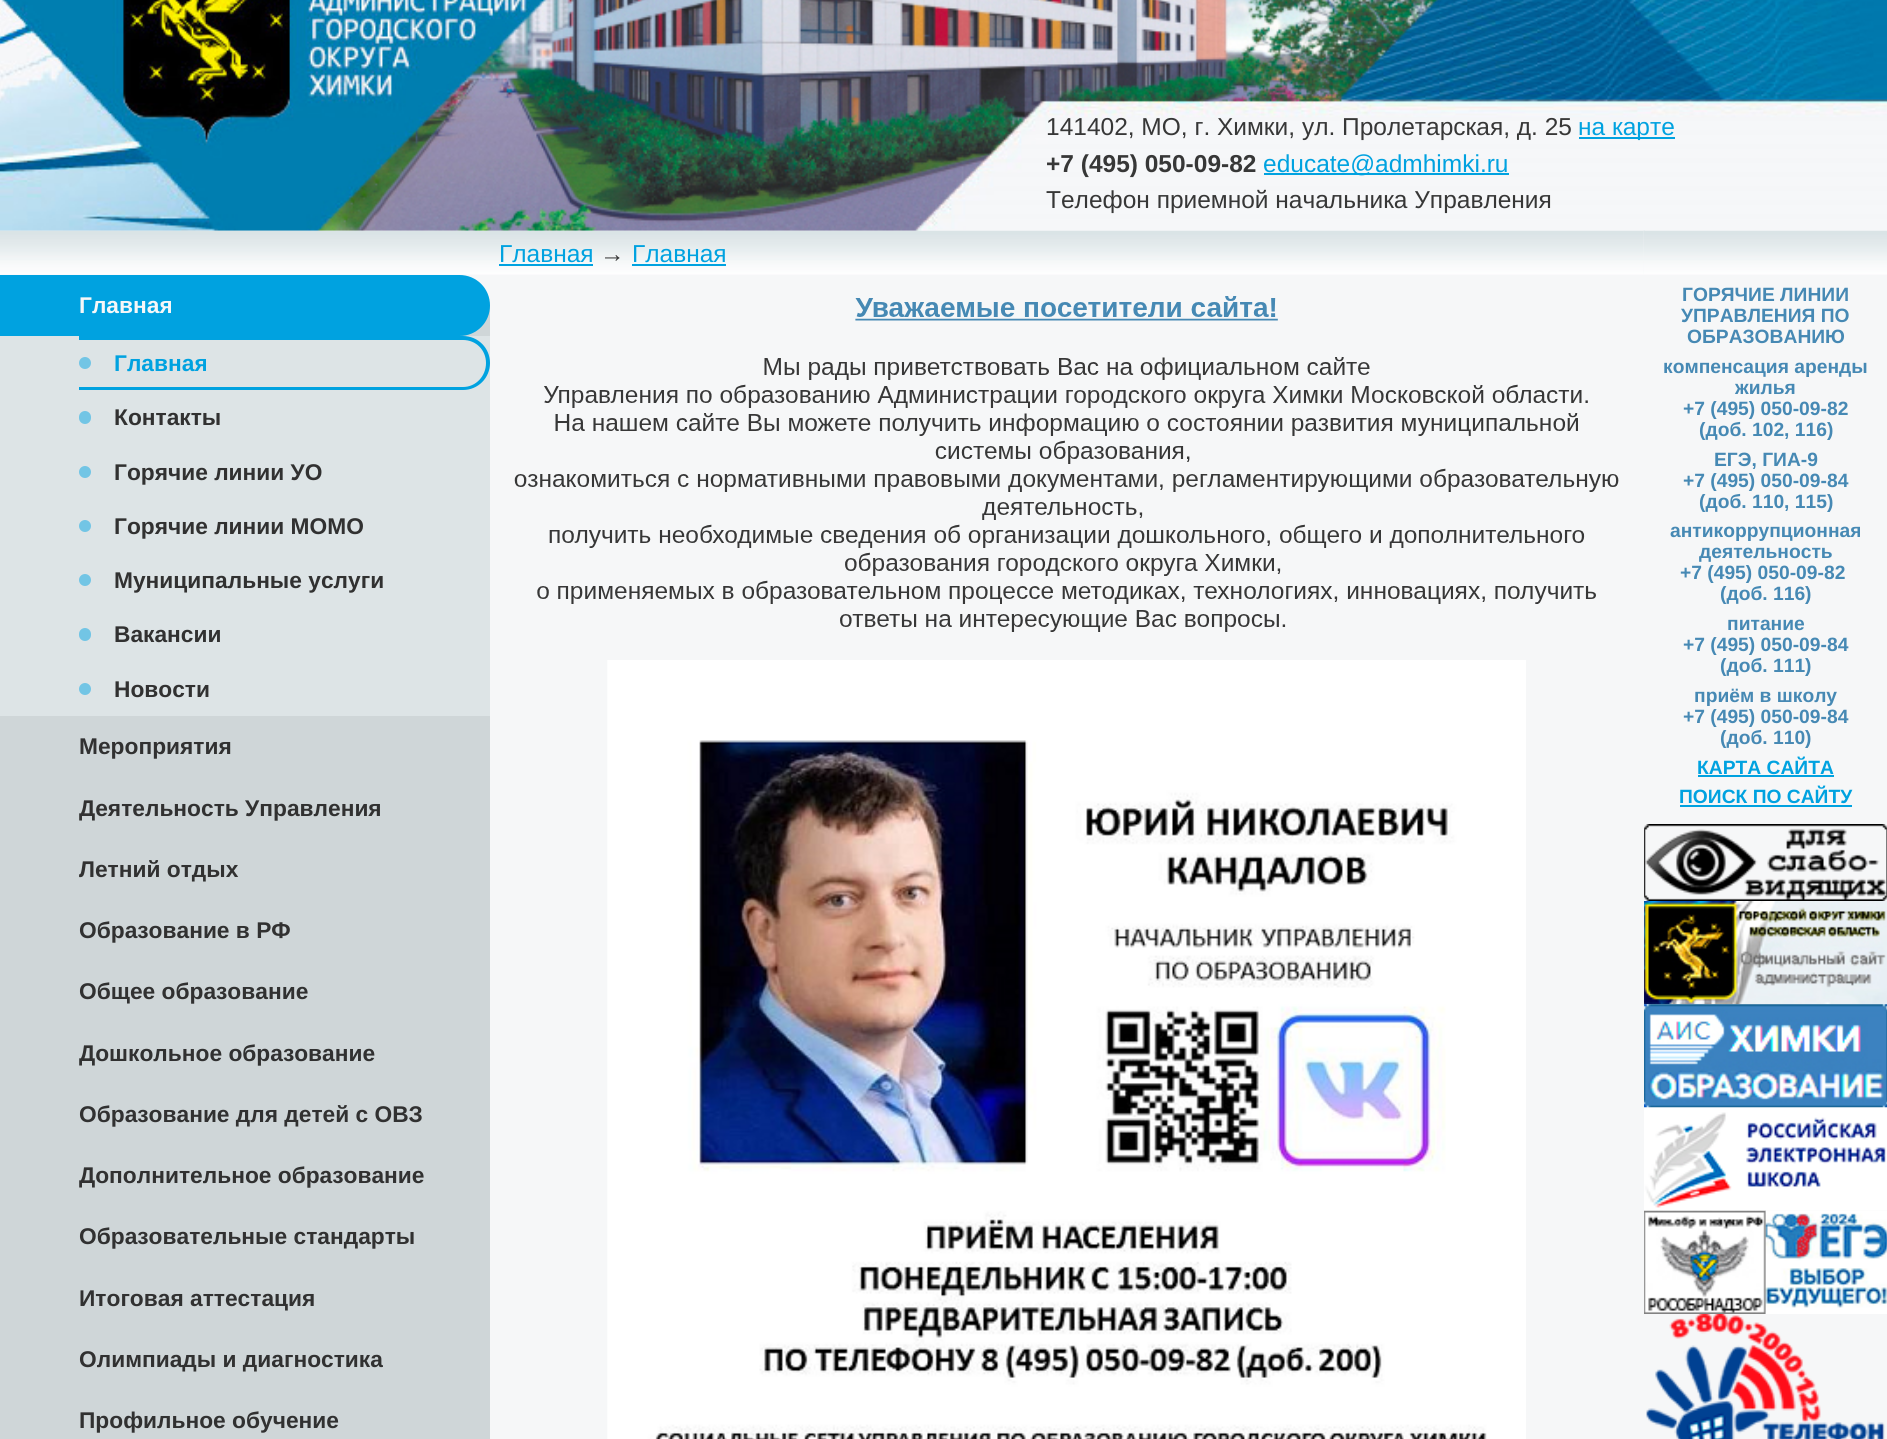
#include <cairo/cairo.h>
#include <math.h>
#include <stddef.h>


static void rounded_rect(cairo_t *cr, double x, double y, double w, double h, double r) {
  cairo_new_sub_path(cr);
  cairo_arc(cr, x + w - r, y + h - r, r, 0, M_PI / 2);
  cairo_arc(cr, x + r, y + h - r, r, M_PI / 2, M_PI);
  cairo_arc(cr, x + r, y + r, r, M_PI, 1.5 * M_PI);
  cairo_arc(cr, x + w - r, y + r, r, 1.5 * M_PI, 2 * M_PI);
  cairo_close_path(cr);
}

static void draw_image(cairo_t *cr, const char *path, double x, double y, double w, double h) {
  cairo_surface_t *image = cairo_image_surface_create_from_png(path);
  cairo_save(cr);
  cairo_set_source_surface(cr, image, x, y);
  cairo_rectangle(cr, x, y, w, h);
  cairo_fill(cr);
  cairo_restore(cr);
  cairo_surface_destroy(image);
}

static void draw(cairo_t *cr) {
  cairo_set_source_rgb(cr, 246 / 255.0, 247 / 255.0, 248 / 255.0);
  cairo_paint(cr);
  draw_image(cr, "images/1.png", 0, 0, 1887, 231);
  cairo_set_source_rgb(cr, 0, 162 / 255.0, 224 / 255.0);
  cairo_rectangle(cr, 1579, 137, 96, 2);
  cairo_fill(cr);
  cairo_rectangle(cr, 1264, 173, 245, 2);
  cairo_fill(cr);
  draw_image(cr, "images/2.png", 0, 230, 490, 45);
  draw_image(cr, "images/3.png", 490, 230, 1154, 45);
  cairo_rectangle(cr, 499, 264, 94, 2);
  cairo_fill(cr);
  cairo_rectangle(cr, 632, 264, 94, 2);
  cairo_fill(cr);
  draw_image(cr, "images/4.png", 1643, 230, 244, 45);
  draw_image(cr, "images/5.png", 1643, 230, 2, 1);
  cairo_set_source_rgb(cr, 207 / 255.0, 214 / 255.0, 216 / 255.0);
  cairo_new_path(cr);
  cairo_move_to(cr, 0, 275);
  cairo_line_to(cr, 455, 275);
  cairo_curve_to(cr, 474.5, 275, 490, 290.5, 490, 310);
  cairo_line_to(cr, 490, 336);
  cairo_line_to(cr, 0, 336);
  cairo_close_path(cr);
  cairo_fill(cr);
  cairo_set_source_rgb(cr, 0, 162 / 255.0, 224 / 255.0);
  cairo_new_path(cr);
  cairo_move_to(cr, 0, 275);
  cairo_line_to(cr, 459.5, 275);
  cairo_curve_to(cr, 476.5, 275, 490, 288.5, 490, 305.5);
  cairo_curve_to(cr, 490, 322.5, 476.5, 336, 459.5, 336);
  cairo_line_to(cr, 0, 336);
  cairo_close_path(cr);
  cairo_fill(cr);
  cairo_set_source_rgb(cr, 221 / 255.0, 228 / 255.0, 230 / 255.0);
  cairo_rectangle(cr, 0, 336, 490, 380);
  cairo_fill(cr);
  cairo_set_source_rgb(cr, 0, 162 / 255.0, 224 / 255.0);
  cairo_set_fill_rule(cr, CAIRO_FILL_RULE_EVEN_ODD);
  cairo_new_path(cr);
  cairo_move_to(cr, 79, 336);
  cairo_line_to(cr, 463, 336);
  cairo_curve_to(cr, 478, 336, 490, 348, 490, 363);
  cairo_curve_to(cr, 490, 378, 478, 390, 463, 390);
  cairo_line_to(cr, 79, 390);
  cairo_close_path(cr);
  cairo_move_to(cr, 79, 340);
  cairo_line_to(cr, 463, 340);
  cairo_curve_to(cr, 476, 340, 486, 350, 486, 363);
  cairo_curve_to(cr, 486, 376, 476, 387, 463, 387);
  cairo_line_to(cr, 79, 387);
  cairo_close_path(cr);
  cairo_fill(cr);
  cairo_set_source_rgb(cr, 114 / 255.0, 197 / 255.0, 229 / 255.0);
  cairo_arc(cr, 85, 363, 6, 0, 2 * M_PI);
  cairo_fill(cr);
  rounded_rect(cr, 79, 411, 12, 13, 6);
  cairo_fill(cr);
  cairo_arc(cr, 85, 472, 6, 0, 2 * M_PI);
  cairo_fill(cr);
  cairo_arc(cr, 85, 526, 6, 0, 2 * M_PI);
  cairo_fill(cr);
  cairo_arc(cr, 85, 580, 6, 0, 2 * M_PI);
  cairo_fill(cr);
  rounded_rect(cr, 79, 628, 12, 13, 6);
  cairo_fill(cr);
  cairo_arc(cr, 85, 689, 6, 0, 2 * M_PI);
  cairo_fill(cr);
  cairo_set_source_rgb(cr, 207 / 255.0, 214 / 255.0, 216 / 255.0);
  cairo_rectangle(cr, 0, 716, 490, 723);
  cairo_fill(cr);
  draw_image(cr, "images/6.png", 514, 296, 1130, 1143);
  cairo_set_source_rgb(cr, 0, 162 / 255.0, 224 / 255.0);
  cairo_rectangle(cr, 1698, 775, 136, 2);
  cairo_fill(cr);
  cairo_rectangle(cr, 1680, 805, 172, 2);
  cairo_fill(cr);
  draw_image(cr, "images/7.png", 1644, 824, 243, 77);
  draw_image(cr, "images/8.png", 1644, 901, 243, 104);
  draw_image(cr, "images/9.png", 1644, 1004, 243, 104);
  draw_image(cr, "images/10.png", 1644, 1107, 243, 104);
  draw_image(cr, "images/11.png", 1644, 1210, 122, 104);
  draw_image(cr, "images/12.png", 1765, 1211, 122, 103);
  draw_image(cr, "images/13.png", 1646, 1314, 239, 125);
  cairo_select_font_face(cr, "Liberation Sans", CAIRO_FONT_SLANT_NORMAL, CAIRO_FONT_WEIGHT_NORMAL);
  cairo_set_font_size(cr, 24.5);
  cairo_set_source_rgb(cr, 55 / 255.0, 55 / 255.0, 55 / 255.0);
  cairo_move_to(cr, 1046, 135);
  cairo_show_text(cr, "141402, МО, г. Химки, ул. Пролетарская, д. 25");
  cairo_set_source_rgb(cr, 0, 162 / 255.0, 224 / 255.0);
  cairo_move_to(cr, 1578, 135);
  cairo_show_text(cr, "на карте");
  cairo_save(cr);
  cairo_set_fill_rule(cr, CAIRO_FILL_RULE_WINDING);
  cairo_rectangle(cr, 1047, 112, 787, 110);
  cairo_clip(cr);
  cairo_select_font_face(cr, "Liberation Sans", CAIRO_FONT_SLANT_NORMAL, CAIRO_FONT_WEIGHT_BOLD);
  cairo_set_source_rgb(cr, 55 / 255.0, 55 / 255.0, 55 / 255.0);
  cairo_move_to(cr, 1046, 172);
  cairo_show_text(cr, "+7 (495) 050-09-82");
  cairo_restore(cr);
  cairo_move_to(cr, 1263, 172);
  cairo_show_text(cr, "educate@admhimki.ru");
  cairo_set_source_rgb(cr, 55 / 255.0, 55 / 255.0, 55 / 255.0);
  cairo_move_to(cr, 1046, 208);
  cairo_show_text(cr, "Телефон приемной начальника Управления");
  cairo_set_source_rgb(cr, 0, 162 / 255.0, 224 / 255.0);
  cairo_move_to(cr, 499, 262);
  cairo_show_text(cr, "Главная");
  cairo_set_source_rgb(cr, 55 / 255.0, 55 / 255.0, 55 / 255.0);
  cairo_move_to(cr, 600, 262);
  cairo_show_text(cr, "→");
  cairo_set_source_rgb(cr, 0, 162 / 255.0, 224 / 255.0);
  cairo_move_to(cr, 632, 262);
  cairo_show_text(cr, "Главная");
  cairo_select_font_face(cr, "Liberation Sans", CAIRO_FONT_SLANT_NORMAL, CAIRO_FONT_WEIGHT_BOLD);
  cairo_set_font_size(cr, 22.75);
  cairo_set_source_rgb(cr, 246 / 255.0, 247 / 255.0, 248 / 255.0);
  cairo_move_to(cr, 79, 313);
  cairo_show_text(cr, "Главная");
  cairo_set_source_rgb(cr, 0, 162 / 255.0, 224 / 255.0);
  cairo_move_to(cr, 114, 371);
  cairo_show_text(cr, "Главная");
  cairo_set_source_rgb(cr, 49 / 255.0, 49 / 255.0, 49 / 255.0);
  cairo_move_to(cr, 114, 425);
  cairo_show_text(cr, "Контакты");
  cairo_move_to(cr, 114, 480);
  cairo_show_text(cr, "Горячие линии УО");
  cairo_move_to(cr, 114, 534);
  cairo_show_text(cr, "Горячие линии МОМО");
  cairo_move_to(cr, 114, 588);
  cairo_show_text(cr, "Муниципальные услуги");
  cairo_move_to(cr, 114, 642);
  cairo_show_text(cr, "Вакансии");
  cairo_move_to(cr, 114, 697);
  cairo_show_text(cr, "Новости");
  cairo_move_to(cr, 79, 754);
  cairo_show_text(cr, "Мероприятия");
  cairo_move_to(cr, 79, 816);
  cairo_show_text(cr, "Деятельность Управления");
  cairo_move_to(cr, 79, 877);
  cairo_show_text(cr, "Летний отдых");
  cairo_move_to(cr, 79, 938);
  cairo_show_text(cr, "Образование в РФ");
  cairo_move_to(cr, 79, 999);
  cairo_show_text(cr, "Общее образование");
  cairo_move_to(cr, 79, 1061);
  cairo_show_text(cr, "Дошкольное образование");
  cairo_move_to(cr, 79, 1122);
  cairo_show_text(cr, "Образование для детей с ОВЗ");
  cairo_move_to(cr, 79, 1183);
  cairo_show_text(cr, "Дополнительное образование");
  cairo_move_to(cr, 79, 1244);
  cairo_show_text(cr, "Образовательные стандарты");
  cairo_move_to(cr, 79, 1306);
  cairo_show_text(cr, "Итоговая аттестация");
  cairo_move_to(cr, 79, 1367);
  cairo_show_text(cr, "Олимпиады и диагностика");
  cairo_move_to(cr, 79, 1428);
  cairo_show_text(cr, "Профильное обучение");
  cairo_set_font_size(cr, 19.25);
  cairo_set_source_rgb(cr, 70 / 255.0, 137 / 255.0, 180 / 255.0);
  cairo_move_to(cr, 1682, 301);
  cairo_show_text(cr, "ГОРЯЧИЕ ЛИНИИ");
  cairo_move_to(cr, 1681, 322);
  cairo_show_text(cr, "УПРАВЛЕНИЯ ПО");
  cairo_move_to(cr, 1687, 343);
  cairo_show_text(cr, "ОБРАЗОВАНИЮ");
  cairo_move_to(cr, 1663, 373);
  cairo_show_text(cr, "компенсация аренды");
  cairo_move_to(cr, 1735, 394);
  cairo_show_text(cr, "жилья");
  cairo_move_to(cr, 1683, 415);
  cairo_show_text(cr, "+7 (495) 050-09-82");
  cairo_move_to(cr, 1699, 436);
  cairo_show_text(cr, "(доб. 102, 116)");
  cairo_move_to(cr, 1714, 466);
  cairo_show_text(cr, "ЕГЭ, ГИА-9");
  cairo_move_to(cr, 1683, 487);
  cairo_show_text(cr, "+7 (495) 050-09-84");
  cairo_move_to(cr, 1699, 508);
  cairo_show_text(cr, "(доб. 110, 115)");
  cairo_move_to(cr, 1670, 537);
  cairo_show_text(cr, "антикоррупционная");
  cairo_move_to(cr, 1699, 558);
  cairo_show_text(cr, "деятельность");
  cairo_move_to(cr, 1680, 579);
  cairo_show_text(cr, "+7 (495) 050-09-82");
  cairo_move_to(cr, 1720, 600);
  cairo_show_text(cr, "(доб. 116)");
  cairo_move_to(cr, 1727, 630);
  cairo_show_text(cr, "питание");
  cairo_move_to(cr, 1683, 651);
  cairo_show_text(cr, "+7 (495) 050-09-84");
  cairo_move_to(cr, 1720, 672);
  cairo_show_text(cr, "(доб. 111)");
  cairo_move_to(cr, 1694, 702);
  cairo_show_text(cr, "приём в школу");
  cairo_move_to(cr, 1683, 723);
  cairo_show_text(cr, "+7 (495) 050-09-84");
  cairo_move_to(cr, 1720, 744);
  cairo_show_text(cr, "(доб. 110)");
  cairo_set_source_rgb(cr, 0, 162 / 255.0, 224 / 255.0);
  cairo_move_to(cr, 1697, 774);
  cairo_show_text(cr, "КАРТА САЙТА");
  cairo_move_to(cr, 1679, 803);
  cairo_show_text(cr, "ПОИСК ПО САЙТУ");
}

int main(void) {
  cairo_surface_t *surface = cairo_image_surface_create(CAIRO_FORMAT_RGB24, 1887, 1439);
  cairo_t *cr = cairo_create(surface);
  cairo_font_options_t *options = cairo_font_options_create();
  cairo_font_options_set_hint_metrics(options, CAIRO_HINT_METRICS_OFF);
  cairo_font_options_set_hint_style(options, CAIRO_HINT_STYLE_NONE);
  cairo_set_font_options(cr, options);
  cairo_set_miter_limit(cr, 4);
  draw(cr);
  cairo_surface_write_to_png(surface, "out.png");
  cairo_font_options_destroy(options);
  cairo_destroy(cr);
  cairo_surface_destroy(surface);
  return 0;
}
